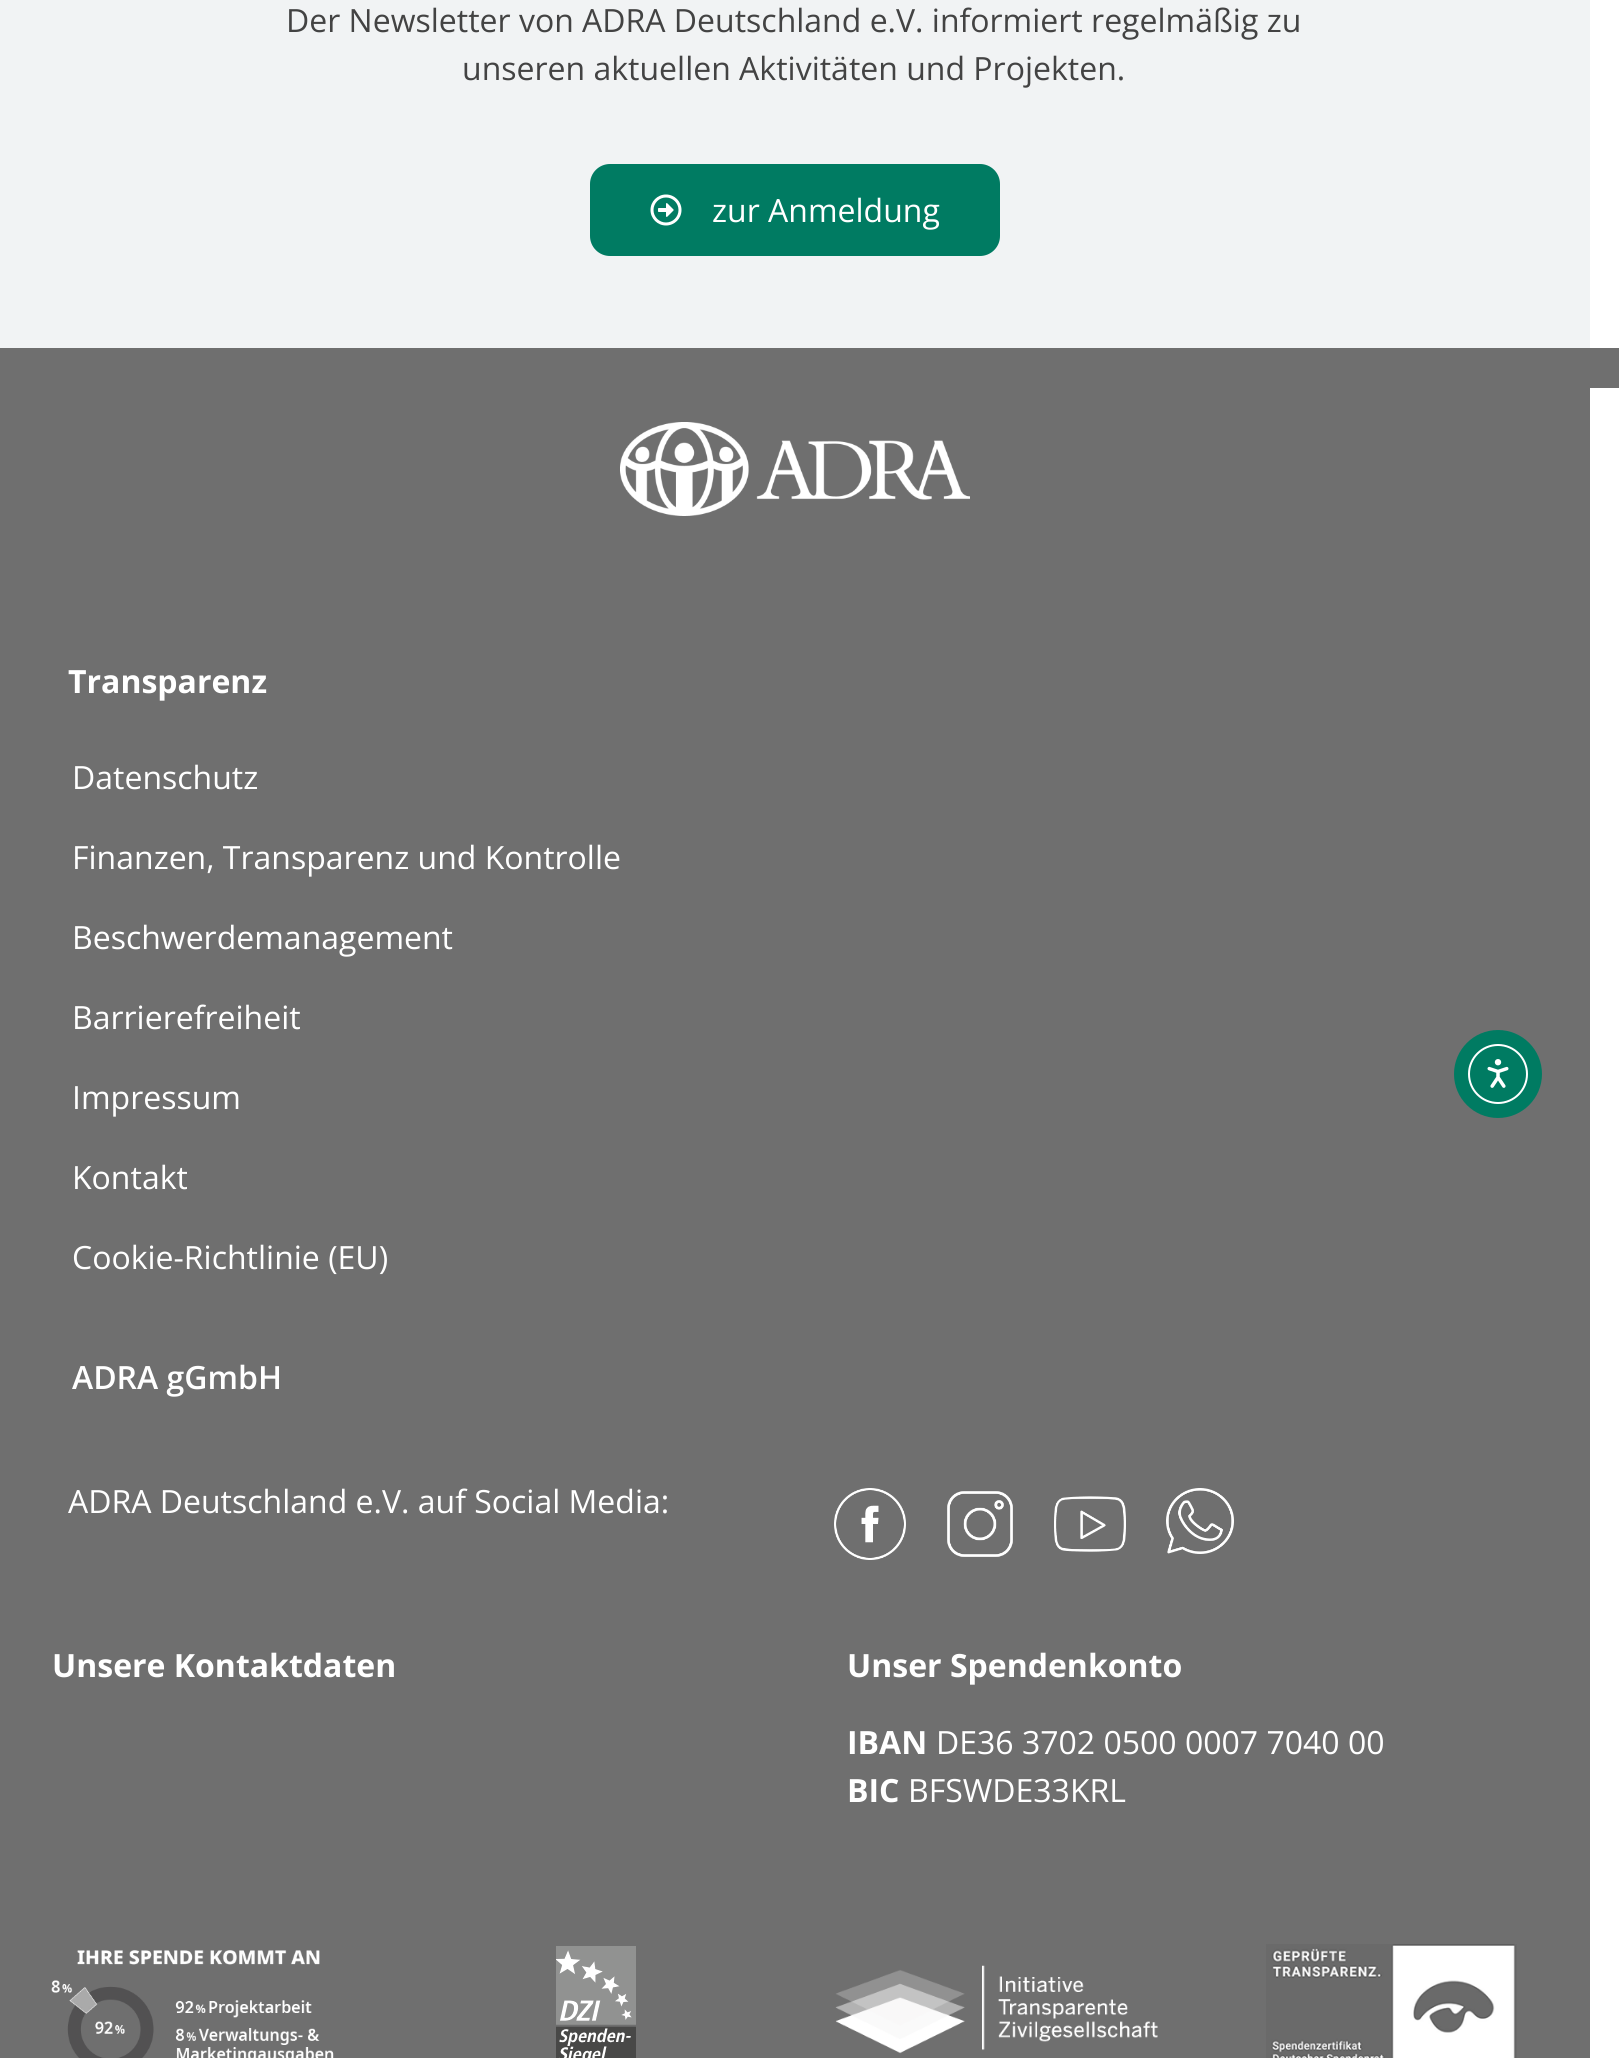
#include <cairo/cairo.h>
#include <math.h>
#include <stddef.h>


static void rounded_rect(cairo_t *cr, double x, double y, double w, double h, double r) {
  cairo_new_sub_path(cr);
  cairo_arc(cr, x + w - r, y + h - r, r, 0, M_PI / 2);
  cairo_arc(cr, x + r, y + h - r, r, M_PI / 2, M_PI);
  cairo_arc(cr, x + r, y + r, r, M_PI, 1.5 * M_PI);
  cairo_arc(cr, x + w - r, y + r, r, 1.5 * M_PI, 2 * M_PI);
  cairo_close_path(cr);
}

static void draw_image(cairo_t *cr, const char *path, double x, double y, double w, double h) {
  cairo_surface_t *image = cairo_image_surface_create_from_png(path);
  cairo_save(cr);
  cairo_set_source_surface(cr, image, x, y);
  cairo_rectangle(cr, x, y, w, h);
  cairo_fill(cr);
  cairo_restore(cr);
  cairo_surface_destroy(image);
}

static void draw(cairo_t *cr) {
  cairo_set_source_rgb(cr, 1, 1, 1);
  cairo_paint(cr);
  cairo_set_source_rgb(cr, 241 / 255.0, 243 / 255.0, 244 / 255.0);
  cairo_rectangle(cr, 0, 0, 1590, 348);
  cairo_fill(cr);
  cairo_set_source_rgb(cr, 0, 123 / 255.0, 98 / 255.0);
  rounded_rect(cr, 590, 164, 410, 92, 20);
  cairo_fill(cr);
  draw_image(cr, "images/1.png", 650, 194, 32, 32);
  cairo_set_source_rgb(cr, 111 / 255.0, 111 / 255.0, 111 / 255.0);
  cairo_rectangle(cr, 0, 348, 1619, 40);
  cairo_fill(cr);
  cairo_rectangle(cr, 0, 388, 1590, 1670);
  cairo_fill(cr);
  draw_image(cr, "images/2.png", 620, 422, 350, 94);
  draw_image(cr, "images/3.png", 834, 1488, 72, 72);
  draw_image(cr, "images/4.png", 947, 1491, 66, 66);
  draw_image(cr, "images/5.png", 1054, 1496, 72, 56);
  draw_image(cr, "images/6.png", 1166, 1488, 68, 66);
  draw_image(cr, "images/7.png", 51, 1950, 283, 108);
  draw_image(cr, "images/8.png", 556, 1946, 80, 112);
  draw_image(cr, "images/9.png", 835, 1965, 323, 89);
  draw_image(cr, "images/10.png", 1266, 1944, 251, 114);
  cairo_set_source_rgb(cr, 0, 123 / 255.0, 98 / 255.0);
  cairo_arc(cr, 1498, 1074, 44, 0, 2 * M_PI);
  cairo_fill(cr);
  cairo_arc(cr, 1498, 1074, 29, 0, 2 * M_PI);
  cairo_set_source_rgb(cr, 1, 1, 1);
  cairo_stroke(cr);
  draw_image(cr, "images/11.png", 1487, 1059, 22, 29);
  cairo_select_font_face(cr, "Open Sans", CAIRO_FONT_SLANT_NORMAL, CAIRO_FONT_WEIGHT_NORMAL);
  cairo_set_font_size(cr, 32);
  cairo_set_source_rgb(cr, 67 / 255.0, 67 / 255.0, 67 / 255.0);
  cairo_move_to(cr, 286, 32);
  cairo_show_text(cr, "Der Newsletter von ADRA Deutschland e.V. informiert regelmäßig zu");
  cairo_move_to(cr, 462, 80);
  cairo_show_text(cr, "unseren aktuellen Aktivitäten und Projekten.");
  cairo_set_source_rgb(cr, 1, 1, 1);
  cairo_move_to(cr, 712, 222);
  cairo_show_text(cr, "zur Anmeldung");
  cairo_select_font_face(cr, "Open Sans", CAIRO_FONT_SLANT_NORMAL, CAIRO_FONT_WEIGHT_BOLD);
  cairo_move_to(cr, 68, 693);
  cairo_show_text(cr, "Transparenz");
  cairo_select_font_face(cr, "Open Sans", CAIRO_FONT_SLANT_NORMAL, CAIRO_FONT_WEIGHT_NORMAL);
  cairo_move_to(cr, 72, 789);
  cairo_show_text(cr, "Datenschutz");
  cairo_move_to(cr, 72, 869);
  cairo_show_text(cr, "Finanzen, Transparenz und Kontrolle");
  cairo_move_to(cr, 72, 949);
  cairo_show_text(cr, "Beschwerdemanagement");
  cairo_move_to(cr, 72, 1029);
  cairo_show_text(cr, "Barrierefreiheit");
  cairo_move_to(cr, 72, 1109);
  cairo_show_text(cr, "Impressum");
  cairo_move_to(cr, 72, 1189);
  cairo_show_text(cr, "Kontakt");
  cairo_move_to(cr, 72, 1269);
  cairo_show_text(cr, "Cookie-Richtlinie (EU)");
  cairo_select_font_face(cr, "Open Sans SemiBold", CAIRO_FONT_SLANT_NORMAL, CAIRO_FONT_WEIGHT_NORMAL);
  cairo_move_to(cr, 72, 1389);
  cairo_show_text(cr, "ADRA gGmbH");
  cairo_select_font_face(cr, "Open Sans", CAIRO_FONT_SLANT_NORMAL, CAIRO_FONT_WEIGHT_NORMAL);
  cairo_move_to(cr, 68, 1513);
  cairo_show_text(cr, "ADRA Deutschland e.V. auf Social Media:");
  cairo_select_font_face(cr, "Open Sans", CAIRO_FONT_SLANT_NORMAL, CAIRO_FONT_WEIGHT_BOLD);
  cairo_move_to(cr, 52, 1677);
  cairo_show_text(cr, "Unsere Kontaktdaten");
  cairo_move_to(cr, 847, 1677);
  cairo_show_text(cr, "Unser Spendenkonto");
  cairo_move_to(cr, 847, 1754);
  cairo_show_text(cr, "IBAN");
  cairo_select_font_face(cr, "Open Sans", CAIRO_FONT_SLANT_NORMAL, CAIRO_FONT_WEIGHT_NORMAL);
  cairo_move_to(cr, 936, 1754);
  cairo_show_text(cr, "DE36 3702 0500 0007 7040 00");
  cairo_select_font_face(cr, "Open Sans", CAIRO_FONT_SLANT_NORMAL, CAIRO_FONT_WEIGHT_BOLD);
  cairo_move_to(cr, 847, 1802);
  cairo_show_text(cr, "BIC");
  cairo_select_font_face(cr, "Open Sans", CAIRO_FONT_SLANT_NORMAL, CAIRO_FONT_WEIGHT_NORMAL);
  cairo_move_to(cr, 908, 1802);
  cairo_show_text(cr, "BFSWDE33KRL");
}

int main(void) {
  cairo_surface_t *surface = cairo_image_surface_create(CAIRO_FORMAT_RGB24, 1619, 2058);
  cairo_t *cr = cairo_create(surface);
  cairo_font_options_t *options = cairo_font_options_create();
  cairo_font_options_set_hint_metrics(options, CAIRO_HINT_METRICS_OFF);
  cairo_font_options_set_hint_style(options, CAIRO_HINT_STYLE_NONE);
  cairo_set_font_options(cr, options);
  cairo_set_miter_limit(cr, 4);
  draw(cr);
  cairo_surface_write_to_png(surface, "out.png");
  cairo_font_options_destroy(options);
  cairo_destroy(cr);
  cairo_surface_destroy(surface);
  return 0;
}
